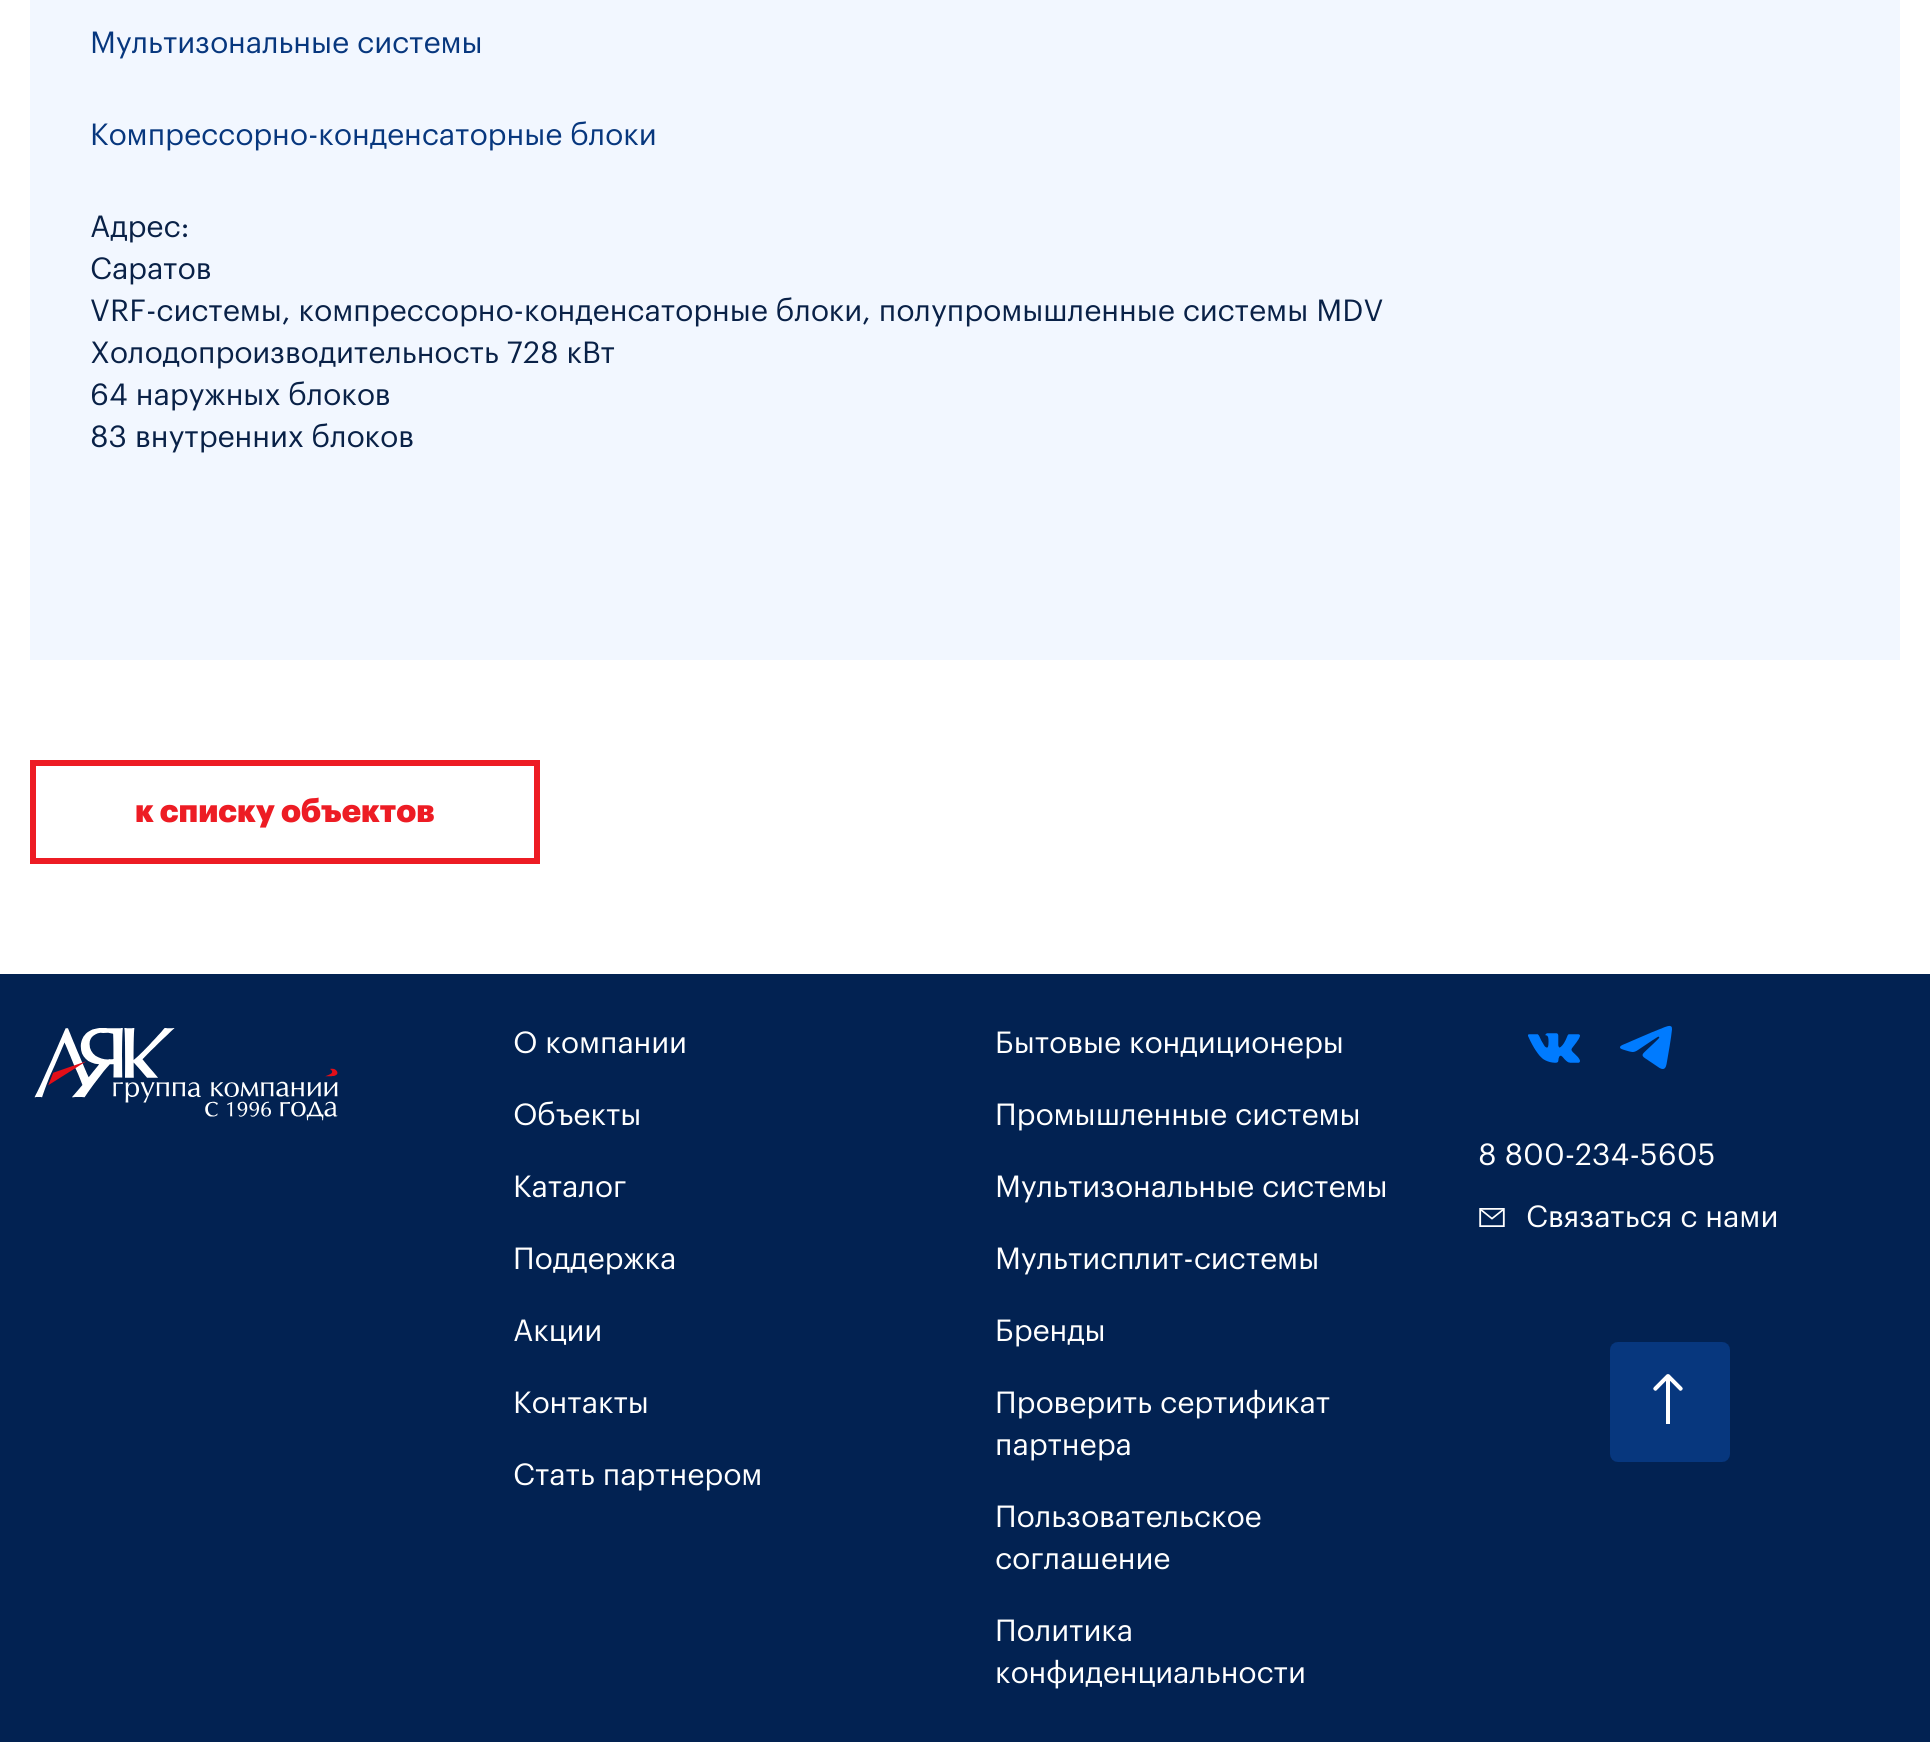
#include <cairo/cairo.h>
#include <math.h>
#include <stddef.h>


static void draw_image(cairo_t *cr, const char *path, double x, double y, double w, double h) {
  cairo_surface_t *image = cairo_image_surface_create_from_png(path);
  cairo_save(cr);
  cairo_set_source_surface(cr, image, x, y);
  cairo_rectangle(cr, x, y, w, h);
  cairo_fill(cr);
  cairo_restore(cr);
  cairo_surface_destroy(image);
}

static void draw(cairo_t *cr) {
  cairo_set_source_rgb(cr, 1, 1, 1);
  cairo_paint(cr);
  cairo_set_source_rgb(cr, 242 / 255.0, 247 / 255.0, 1);
  cairo_rectangle(cr, 30, 0, 1870, 660);
  cairo_fill(cr);
  cairo_rectangle(cr, 33, 763, 504, 98);
  cairo_set_source_rgb(cr, 237 / 255.0, 28 / 255.0, 36 / 255.0);
  cairo_set_line_width(cr, 6);
  cairo_stroke(cr);
  cairo_set_source_rgb(cr, 2 / 255.0, 34 / 255.0, 82 / 255.0);
  cairo_rectangle(cr, 0, 974, 1930, 768);
  cairo_fill(cr);
  draw_image(cr, "images/1.png", 34, 1028, 304, 93);
  draw_image(cr, "images/2.png", 1528, 1033, 52, 30);
  draw_image(cr, "images/3.png", 1620, 1025, 52, 44);
  draw_image(cr, "images/4.png", 1479, 1208, 26, 19);
  draw_image(cr, "images/5.png", 1610, 1342, 120, 120);
  cairo_select_font_face(cr, "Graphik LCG", CAIRO_FONT_SLANT_NORMAL, CAIRO_FONT_WEIGHT_NORMAL);
  cairo_set_font_size(cr, 30);
  cairo_set_source_rgb(cr, 7 / 255.0, 55 / 255.0, 126 / 255.0);
  cairo_move_to(cr, 90, 53);
  cairo_show_text(cr, "Мультизональные системы");
  cairo_move_to(cr, 90, 145);
  cairo_show_text(cr, "Компрессорно-конденсаторные блоки");
  cairo_set_source_rgb(cr, 9 / 255.0, 33 / 255.0, 71 / 255.0);
  cairo_move_to(cr, 90, 237);
  cairo_show_text(cr, "Адрес:");
  cairo_move_to(cr, 90, 279);
  cairo_show_text(cr, "Саратов");
  cairo_move_to(cr, 90, 321);
  cairo_show_text(cr, "VRF-системы, компрессорно-конденсаторные блоки, полупромышленные системы MDV");
  cairo_move_to(cr, 90, 363);
  cairo_show_text(cr, "Холодопроизводительность 728 кВт");
  cairo_move_to(cr, 90, 405);
  cairo_show_text(cr, "64 наружных блоков");
  cairo_move_to(cr, 90, 447);
  cairo_show_text(cr, "83 внутренних блоков");
  cairo_select_font_face(cr, "Graphik LCG Black", CAIRO_FONT_SLANT_NORMAL, CAIRO_FONT_WEIGHT_NORMAL);
  cairo_set_font_size(cr, 32);
  cairo_set_source_rgb(cr, 237 / 255.0, 28 / 255.0, 36 / 255.0);
  cairo_move_to(cr, 135, 822);
  cairo_show_text(cr, "к списку объектов");
  cairo_select_font_face(cr, "Graphik LCG", CAIRO_FONT_SLANT_NORMAL, CAIRO_FONT_WEIGHT_NORMAL);
  cairo_set_font_size(cr, 30);
  cairo_set_source_rgb(cr, 1, 1, 1);
  cairo_move_to(cr, 513, 1053);
  cairo_show_text(cr, "О компании");
  cairo_move_to(cr, 513, 1125);
  cairo_show_text(cr, "Объекты");
  cairo_move_to(cr, 513, 1197);
  cairo_show_text(cr, "Каталог");
  cairo_move_to(cr, 513, 1269);
  cairo_show_text(cr, "Поддержка");
  cairo_move_to(cr, 513, 1341);
  cairo_show_text(cr, "Акции");
  cairo_move_to(cr, 513, 1413);
  cairo_show_text(cr, "Контакты");
  cairo_move_to(cr, 513, 1485);
  cairo_show_text(cr, "Стать партнером");
  cairo_move_to(cr, 995, 1053);
  cairo_show_text(cr, "Бытовые кондиционеры");
  cairo_move_to(cr, 995, 1125);
  cairo_show_text(cr, "Промышленные системы");
  cairo_move_to(cr, 995, 1197);
  cairo_show_text(cr, "Мультизональные системы");
  cairo_move_to(cr, 995, 1269);
  cairo_show_text(cr, "Мультисплит-системы");
  cairo_move_to(cr, 995, 1341);
  cairo_show_text(cr, "Бренды");
  cairo_move_to(cr, 995, 1413);
  cairo_show_text(cr, "Проверить сертификат");
  cairo_move_to(cr, 995, 1455);
  cairo_show_text(cr, "партнера");
  cairo_move_to(cr, 995, 1527);
  cairo_show_text(cr, "Пользовательское");
  cairo_move_to(cr, 995, 1569);
  cairo_show_text(cr, "соглашение");
  cairo_move_to(cr, 995, 1641);
  cairo_show_text(cr, "Политика");
  cairo_move_to(cr, 995, 1683);
  cairo_show_text(cr, "конфиденциальности");
  cairo_move_to(cr, 1478, 1165);
  cairo_show_text(cr, "8 800-234-5605");
  cairo_move_to(cr, 1526, 1227);
  cairo_show_text(cr, "Связаться с нами");
}

int main(void) {
  cairo_surface_t *surface = cairo_image_surface_create(CAIRO_FORMAT_RGB24, 1930, 1742);
  cairo_t *cr = cairo_create(surface);
  cairo_font_options_t *options = cairo_font_options_create();
  cairo_font_options_set_hint_metrics(options, CAIRO_HINT_METRICS_OFF);
  cairo_font_options_set_hint_style(options, CAIRO_HINT_STYLE_NONE);
  cairo_set_font_options(cr, options);
  cairo_set_miter_limit(cr, 4);
  draw(cr);
  cairo_surface_write_to_png(surface, "out.png");
  cairo_font_options_destroy(options);
  cairo_destroy(cr);
  cairo_surface_destroy(surface);
  return 0;
}
